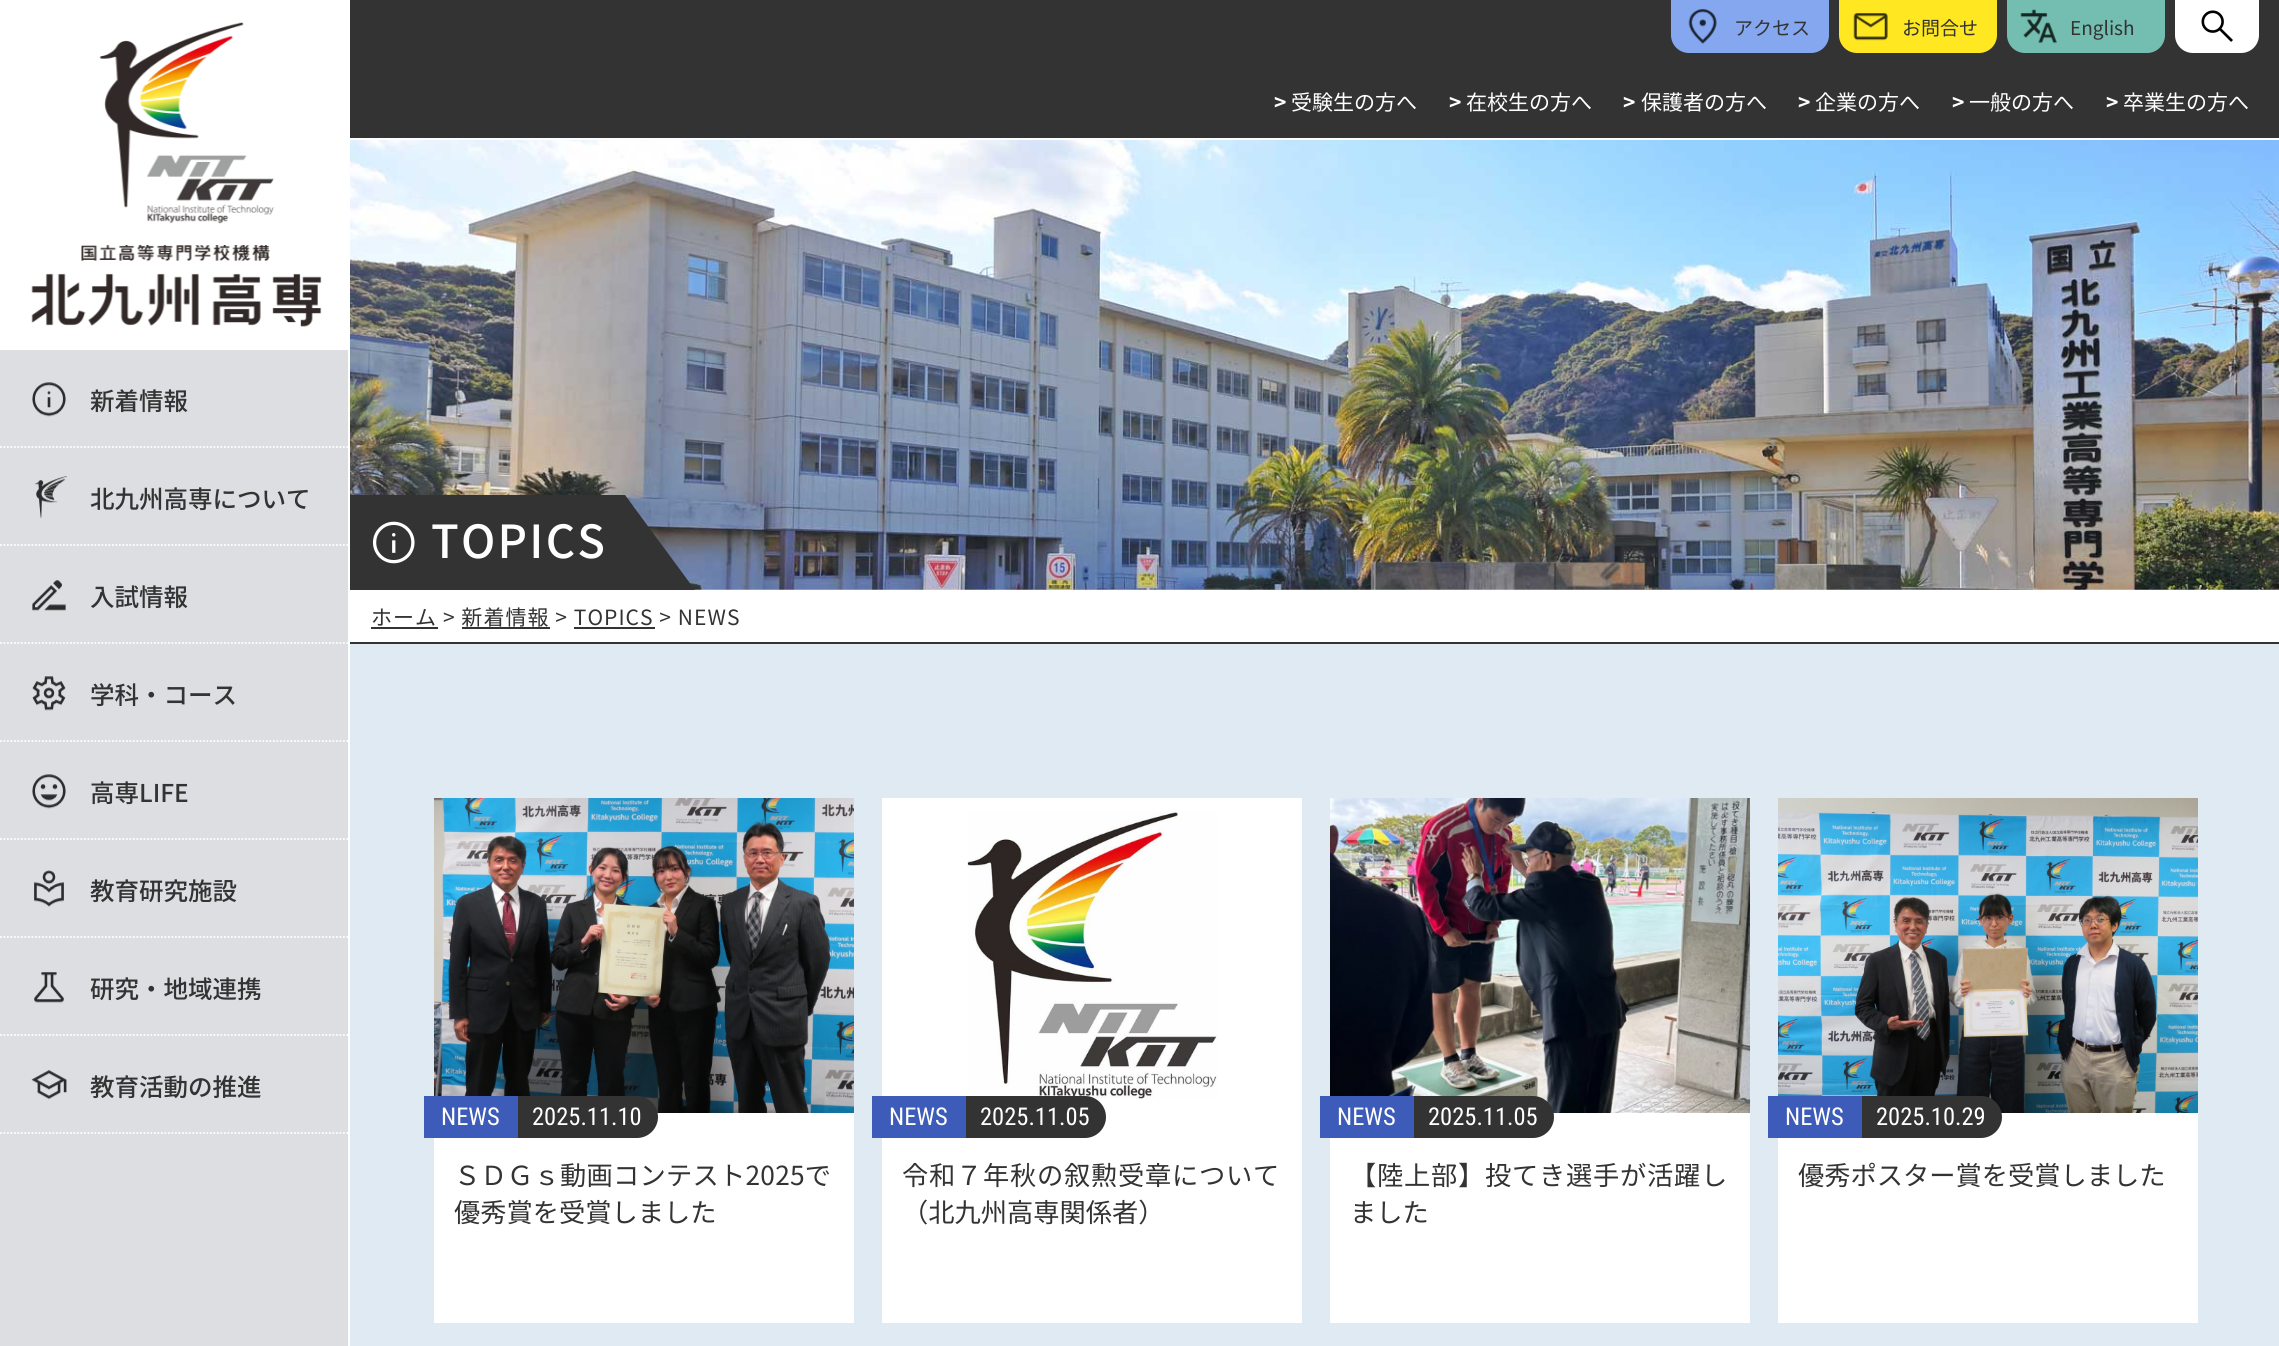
#include <cairo/cairo.h>
#include <math.h>
#include <stddef.h>


static void draw_spaced(cairo_t *cr, double x, double y, const char *s, double letter, double word) {
  cairo_move_to(cr, x, y);
  while (*s) {
    char ch[5] = {0};
    int n = 0;
    do ch[n++] = *s++; while ((*s & 0xC0) == 0x80);
    cairo_show_text(cr, ch);
    cairo_rel_move_to(cr, letter + word * (*ch == ' '), 0);
  }
}

static void draw_image(cairo_t *cr, const char *path, double x, double y, double w, double h) {
  cairo_surface_t *image = cairo_image_surface_create_from_png(path);
  cairo_save(cr);
  cairo_set_source_surface(cr, image, x, y);
  cairo_rectangle(cr, x, y, w, h);
  cairo_fill(cr);
  cairo_restore(cr);
  cairo_surface_destroy(image);
}

static void draw(cairo_t *cr) {
  cairo_set_source_rgb(cr, 1, 1, 1);
  cairo_paint(cr);
  cairo_set_source_rgb(cr, 51 / 255.0, 51 / 255.0, 51 / 255.0);
  cairo_rectangle(cr, 350, 0, 1929, 138);
  cairo_fill(cr);
  draw_image(cr, "images/1.png", 31, 22, 291, 305);
  cairo_set_source_rgb(cr, 132 / 255.0, 167 / 255.0, 240 / 255.0);
  cairo_new_path(cr);
  cairo_move_to(cr, 1671, 0);
  cairo_line_to(cr, 1829, 0);
  cairo_line_to(cr, 1829, 35);
  cairo_curve_to(cr, 1829, 45, 1821, 53, 1811, 53);
  cairo_line_to(cr, 1689, 53);
  cairo_curve_to(cr, 1679, 53, 1671, 45, 1671, 35);
  cairo_close_path(cr);
  cairo_fill(cr);
  draw_image(cr, "images/2.png", 1688, 9, 29, 35);
  cairo_set_source_rgb(cr, 1, 232 / 255.0, 34 / 255.0);
  cairo_new_path(cr);
  cairo_move_to(cr, 1839, 0);
  cairo_line_to(cr, 1997, 0);
  cairo_line_to(cr, 1997, 35);
  cairo_curve_to(cr, 1997, 45, 1989, 53, 1979, 53);
  cairo_line_to(cr, 1857, 53);
  cairo_curve_to(cr, 1847, 53, 1839, 45, 1839, 35);
  cairo_close_path(cr);
  cairo_fill(cr);
  draw_image(cr, "images/3.png", 1853, 13, 35, 28);
  cairo_set_source_rgb(cr, 116 / 255.0, 190 / 255.0, 177 / 255.0);
  cairo_new_path(cr);
  cairo_move_to(cr, 2007, 0);
  cairo_line_to(cr, 2165, 0);
  cairo_line_to(cr, 2165, 35);
  cairo_curve_to(cr, 2165, 45, 2157, 53, 2147, 53);
  cairo_line_to(cr, 2025, 53);
  cairo_curve_to(cr, 2015, 53, 2007, 45, 2007, 35);
  cairo_close_path(cr);
  cairo_fill(cr);
  draw_image(cr, "images/4.png", 2020, 9, 37, 35);
  cairo_set_source_rgb(cr, 1, 1, 1);
  cairo_new_path(cr);
  cairo_move_to(cr, 2175, 0);
  cairo_line_to(cr, 2259, 0);
  cairo_line_to(cr, 2259, 35);
  cairo_curve_to(cr, 2259, 45, 2251, 53, 2241, 53);
  cairo_line_to(cr, 2193, 53);
  cairo_curve_to(cr, 2183, 53, 2175, 45, 2175, 35);
  cairo_close_path(cr);
  cairo_fill(cr);
  draw_image(cr, "images/5.png", 2201, 10, 32, 32);
  cairo_set_source_rgb(cr, 220 / 255.0, 222 / 255.0, 225 / 255.0);
  cairo_rectangle(cr, 0, 350, 348, 996);
  cairo_fill(cr);
  cairo_new_path(cr);
  cairo_move_to(cr, 0, 447);
  cairo_line_to(cr, 348, 447);
  cairo_set_source_rgb(cr, 1, 1, 1);
  cairo_set_line_width(cr, 1.8);
  cairo_set_dash(cr, (double[]){1.75, 1.75}, 2, 0);
  cairo_stroke(cr);
  draw_image(cr, "images/6.png", 32, 382, 34, 35);
  cairo_new_path(cr);
  cairo_move_to(cr, 0, 545);
  cairo_line_to(cr, 348, 545);
  cairo_stroke(cr);
  draw_image(cr, "images/7.png", 35, 476, 32, 43);
  cairo_new_path(cr);
  cairo_move_to(cr, 0, 643);
  cairo_line_to(cr, 348, 643);
  cairo_stroke(cr);
  draw_image(cr, "images/8.png", 32, 580, 34, 31);
  cairo_new_path(cr);
  cairo_move_to(cr, 0, 741);
  cairo_line_to(cr, 348, 741);
  cairo_stroke(cr);
  draw_image(cr, "images/9.png", 32, 676, 34, 35);
  cairo_new_path(cr);
  cairo_move_to(cr, 0, 839);
  cairo_line_to(cr, 348, 839);
  cairo_stroke(cr);
  draw_image(cr, "images/10.png", 32, 774, 34, 35);
  cairo_new_path(cr);
  cairo_move_to(cr, 0, 937);
  cairo_line_to(cr, 348, 937);
  cairo_stroke(cr);
  draw_image(cr, "images/11.png", 34, 870, 30, 37);
  cairo_new_path(cr);
  cairo_move_to(cr, 0, 1035);
  cairo_line_to(cr, 348, 1035);
  cairo_stroke(cr);
  draw_image(cr, "images/12.png", 34, 972, 30, 31);
  cairo_new_path(cr);
  cairo_move_to(cr, 0, 1133);
  cairo_line_to(cr, 348, 1133);
  cairo_stroke(cr);
  draw_image(cr, "images/13.png", 31, 1070, 36, 30);
  draw_image(cr, "images/14.png", 350, 140, 1929, 450);
  cairo_set_source_rgb(cr, 51 / 255.0, 51 / 255.0, 51 / 255.0);
  cairo_new_path(cr);
  cairo_move_to(cr, 695, 590);
  cairo_line_to(cr, 350, 590);
  cairo_line_to(cr, 350, 495);
  cairo_line_to(cr, 625, 495);
  cairo_close_path(cr);
  cairo_fill(cr);
  draw_image(cr, "images/15.png", 373, 521, 42, 43);
  cairo_rectangle(cr, 350, 642, 1929, 2);
  cairo_fill(cr);
  cairo_rectangle(cr, 371, 627, 67, 2);
  cairo_fill(cr);
  cairo_rectangle(cr, 462, 627, 88, 2);
  cairo_fill(cr);
  cairo_rectangle(cr, 574, 627, 81, 2);
  cairo_fill(cr);
  cairo_set_source_rgb(cr, 223 / 255.0, 234 / 255.0, 243 / 255.0);
  cairo_rectangle(cr, 350, 644, 1929, 702);
  cairo_fill(cr);
  cairo_set_source_rgb(cr, 1, 1, 1);
  cairo_rectangle(cr, 434, 1113, 420, 210);
  cairo_fill(cr);
  draw_image(cr, "images/16.png", 434, 798, 420, 315);
  cairo_set_source_rgb(cr, 61 / 255.0, 91 / 255.0, 184 / 255.0);
  cairo_rectangle(cr, 424, 1096, 94, 42);
  cairo_fill(cr);
  cairo_set_source_rgb(cr, 51 / 255.0, 51 / 255.0, 51 / 255.0);
  cairo_new_path(cr);
  cairo_move_to(cr, 518, 1096);
  cairo_line_to(cr, 637, 1096);
  cairo_curve_to(cr, 648.5, 1096, 658, 1105.5, 658, 1117);
  cairo_curve_to(cr, 658, 1128.5, 648.5, 1138, 637, 1138);
  cairo_line_to(cr, 518, 1138);
  cairo_close_path(cr);
  cairo_fill(cr);
  cairo_set_source_rgb(cr, 1, 1, 1);
  cairo_rectangle(cr, 882, 798, 420, 525);
  cairo_fill(cr);
  draw_image(cr, "images/17.png", 967, 810, 251, 289);
  cairo_set_source_rgb(cr, 61 / 255.0, 91 / 255.0, 184 / 255.0);
  cairo_rectangle(cr, 872, 1096, 94, 42);
  cairo_fill(cr);
  cairo_set_source_rgb(cr, 51 / 255.0, 51 / 255.0, 51 / 255.0);
  cairo_new_path(cr);
  cairo_move_to(cr, 966, 1096);
  cairo_line_to(cr, 1085, 1096);
  cairo_curve_to(cr, 1096.5, 1096, 1106, 1105.5, 1106, 1117);
  cairo_curve_to(cr, 1106, 1128.5, 1096.5, 1138, 1085, 1138);
  cairo_line_to(cr, 966, 1138);
  cairo_close_path(cr);
  cairo_fill(cr);
  cairo_set_source_rgb(cr, 1, 1, 1);
  cairo_rectangle(cr, 1330, 1113, 420, 210);
  cairo_fill(cr);
  draw_image(cr, "images/18.png", 1330, 798, 420, 315);
  cairo_set_source_rgb(cr, 61 / 255.0, 91 / 255.0, 184 / 255.0);
  cairo_rectangle(cr, 1320, 1096, 94, 42);
  cairo_fill(cr);
  cairo_set_source_rgb(cr, 51 / 255.0, 51 / 255.0, 51 / 255.0);
  cairo_new_path(cr);
  cairo_move_to(cr, 1414, 1096);
  cairo_line_to(cr, 1533, 1096);
  cairo_curve_to(cr, 1544.5, 1096, 1554, 1105.5, 1554, 1117);
  cairo_curve_to(cr, 1554, 1128.5, 1544.5, 1138, 1533, 1138);
  cairo_line_to(cr, 1414, 1138);
  cairo_close_path(cr);
  cairo_fill(cr);
  cairo_set_source_rgb(cr, 1, 1, 1);
  cairo_rectangle(cr, 1778, 1113, 420, 210);
  cairo_fill(cr);
  draw_image(cr, "images/19.png", 1778, 798, 420, 315);
  cairo_set_source_rgb(cr, 61 / 255.0, 91 / 255.0, 184 / 255.0);
  cairo_rectangle(cr, 1768, 1096, 94, 42);
  cairo_fill(cr);
  cairo_set_source_rgb(cr, 51 / 255.0, 51 / 255.0, 51 / 255.0);
  cairo_new_path(cr);
  cairo_move_to(cr, 1862, 1096);
  cairo_line_to(cr, 1981, 1096);
  cairo_curve_to(cr, 1992.5, 1096, 2002, 1105.5, 2002, 1117);
  cairo_curve_to(cr, 2002, 1128.5, 1992.5, 1138, 1981, 1138);
  cairo_line_to(cr, 1862, 1138);
  cairo_close_path(cr);
  cairo_fill(cr);
  cairo_select_font_face(cr, "Noto Sans JP", CAIRO_FONT_SLANT_NORMAL, CAIRO_FONT_WEIGHT_NORMAL);
  cairo_set_font_size(cr, 19);
  cairo_move_to(cr, 1734, 35);
  cairo_show_text(cr, "アクセス");
  cairo_move_to(cr, 1902, 35);
  cairo_show_text(cr, "お問合せ");
  cairo_move_to(cr, 2070, 35);
  cairo_show_text(cr, "English");
  cairo_select_font_face(cr, "Noto Sans JP", CAIRO_FONT_SLANT_NORMAL, CAIRO_FONT_WEIGHT_BOLD);
  cairo_set_font_size(cr, 21);
  cairo_set_source_rgb(cr, 1, 1, 1);
  cairo_move_to(cr, 1274, 110);
  cairo_show_text(cr, ">");
  cairo_select_font_face(cr, "Noto Sans JP", CAIRO_FONT_SLANT_NORMAL, CAIRO_FONT_WEIGHT_NORMAL);
  cairo_move_to(cr, 1291, 110);
  cairo_show_text(cr, "受験生の方へ");
  cairo_select_font_face(cr, "Noto Sans JP", CAIRO_FONT_SLANT_NORMAL, CAIRO_FONT_WEIGHT_BOLD);
  cairo_move_to(cr, 1449, 110);
  cairo_show_text(cr, ">");
  cairo_select_font_face(cr, "Noto Sans JP", CAIRO_FONT_SLANT_NORMAL, CAIRO_FONT_WEIGHT_NORMAL);
  cairo_move_to(cr, 1466, 110);
  cairo_show_text(cr, "在校生の方へ");
  cairo_select_font_face(cr, "Noto Sans JP", CAIRO_FONT_SLANT_NORMAL, CAIRO_FONT_WEIGHT_BOLD);
  cairo_move_to(cr, 1623, 110);
  cairo_show_text(cr, ">");
  cairo_select_font_face(cr, "Noto Sans JP", CAIRO_FONT_SLANT_NORMAL, CAIRO_FONT_WEIGHT_NORMAL);
  cairo_move_to(cr, 1641, 110);
  cairo_show_text(cr, "保護者の方へ");
  cairo_select_font_face(cr, "Noto Sans JP", CAIRO_FONT_SLANT_NORMAL, CAIRO_FONT_WEIGHT_BOLD);
  cairo_move_to(cr, 1798, 110);
  cairo_show_text(cr, ">");
  cairo_select_font_face(cr, "Noto Sans JP", CAIRO_FONT_SLANT_NORMAL, CAIRO_FONT_WEIGHT_NORMAL);
  cairo_move_to(cr, 1815, 110);
  cairo_show_text(cr, "企業の方へ");
  cairo_select_font_face(cr, "Noto Sans JP", CAIRO_FONT_SLANT_NORMAL, CAIRO_FONT_WEIGHT_BOLD);
  cairo_move_to(cr, 1952, 110);
  cairo_show_text(cr, ">");
  cairo_select_font_face(cr, "Noto Sans JP", CAIRO_FONT_SLANT_NORMAL, CAIRO_FONT_WEIGHT_NORMAL);
  cairo_move_to(cr, 1969, 110);
  cairo_show_text(cr, "一般の方へ");
  cairo_select_font_face(cr, "Noto Sans JP", CAIRO_FONT_SLANT_NORMAL, CAIRO_FONT_WEIGHT_BOLD);
  cairo_move_to(cr, 2106, 110);
  cairo_show_text(cr, ">");
  cairo_select_font_face(cr, "Noto Sans JP", CAIRO_FONT_SLANT_NORMAL, CAIRO_FONT_WEIGHT_NORMAL);
  cairo_move_to(cr, 2123, 110);
  cairo_show_text(cr, "卒業生の方へ");
  cairo_select_font_face(cr, "Noto Sans JP Medium", CAIRO_FONT_SLANT_NORMAL, CAIRO_FONT_WEIGHT_NORMAL);
  cairo_set_font_size(cr, 24.5);
  cairo_set_source_rgb(cr, 51 / 255.0, 51 / 255.0, 51 / 255.0);
  cairo_move_to(cr, 90, 410);
  cairo_show_text(cr, "新着情報");
  cairo_move_to(cr, 90, 508);
  cairo_show_text(cr, "北九州高専について");
  cairo_move_to(cr, 90, 606);
  cairo_show_text(cr, "入試情報");
  cairo_move_to(cr, 90, 704);
  cairo_show_text(cr, "学科・コース");
  cairo_move_to(cr, 90, 802);
  cairo_show_text(cr, "高専LIFE");
  cairo_move_to(cr, 90, 900);
  cairo_show_text(cr, "教育研究施設");
  cairo_move_to(cr, 90, 998);
  cairo_show_text(cr, "研究・地域連携");
  cairo_move_to(cr, 90, 1096);
  cairo_show_text(cr, "教育活動の推進");
  cairo_set_font_size(cr, 45.5);
  cairo_set_source_rgb(cr, 1, 1, 1);
  draw_spaced(cr, 431, 558, "TOPICS", 2.25, 0);
  cairo_select_font_face(cr, "Noto Sans JP", CAIRO_FONT_SLANT_NORMAL, CAIRO_FONT_WEIGHT_NORMAL);
  cairo_set_font_size(cr, 21);
  cairo_set_source_rgb(cr, 51 / 255.0, 51 / 255.0, 51 / 255.0);
  draw_spaced(cr, 371, 625, "ホーム > 新着情報 > TOPICS > NEWS", 1.05, 0);
  cairo_select_font_face(cr, "Roboto Condensed", CAIRO_FONT_SLANT_NORMAL, CAIRO_FONT_WEIGHT_NORMAL);
  cairo_set_font_size(cr, 24.5);
  cairo_set_source_rgb(cr, 1, 1, 1);
  cairo_move_to(cr, 441, 1125);
  cairo_show_text(cr, "NEWS");
  cairo_move_to(cr, 532, 1125);
  cairo_show_text(cr, "2025.11.10");
  cairo_select_font_face(cr, "Noto Sans JP", CAIRO_FONT_SLANT_NORMAL, CAIRO_FONT_WEIGHT_NORMAL);
  cairo_set_font_size(cr, 26.25);
  cairo_set_source_rgb(cr, 51 / 255.0, 51 / 255.0, 51 / 255.0);
  draw_spaced(cr, 454, 1185, "ＳＤＧｓ動画コンテスト2025で", 0.25, 0);
  cairo_move_to(cr, 454, 1222);
  cairo_show_text(cr, "優秀賞を受賞しました");
  cairo_select_font_face(cr, "Roboto Condensed", CAIRO_FONT_SLANT_NORMAL, CAIRO_FONT_WEIGHT_NORMAL);
  cairo_set_font_size(cr, 24.5);
  cairo_set_source_rgb(cr, 1, 1, 1);
  cairo_move_to(cr, 889, 1125);
  cairo_show_text(cr, "NEWS");
  cairo_move_to(cr, 980, 1125);
  cairo_show_text(cr, "2025.11.05");
  cairo_select_font_face(cr, "Noto Sans JP", CAIRO_FONT_SLANT_NORMAL, CAIRO_FONT_WEIGHT_NORMAL);
  cairo_set_font_size(cr, 26.25);
  cairo_set_source_rgb(cr, 51 / 255.0, 51 / 255.0, 51 / 255.0);
  draw_spaced(cr, 902, 1185, "令和７年秋の叙勲受章について", 0.75, 0);
  cairo_move_to(cr, 902, 1222);
  cairo_show_text(cr, "（北九州高専関係者）");
  cairo_select_font_face(cr, "Roboto Condensed", CAIRO_FONT_SLANT_NORMAL, CAIRO_FONT_WEIGHT_NORMAL);
  cairo_set_font_size(cr, 24.5);
  cairo_set_source_rgb(cr, 1, 1, 1);
  cairo_move_to(cr, 1337, 1125);
  cairo_show_text(cr, "NEWS");
  cairo_move_to(cr, 1428, 1125);
  cairo_show_text(cr, "2025.11.05");
  cairo_select_font_face(cr, "Noto Sans JP", CAIRO_FONT_SLANT_NORMAL, CAIRO_FONT_WEIGHT_NORMAL);
  cairo_set_font_size(cr, 26.25);
  cairo_set_source_rgb(cr, 51 / 255.0, 51 / 255.0, 51 / 255.0);
  draw_spaced(cr, 1350, 1185, "【陸上部】投てき選手が活躍し", 0.75, 0);
  cairo_move_to(cr, 1350, 1222);
  cairo_show_text(cr, "ました");
  cairo_select_font_face(cr, "Roboto Condensed", CAIRO_FONT_SLANT_NORMAL, CAIRO_FONT_WEIGHT_NORMAL);
  cairo_set_font_size(cr, 24.5);
  cairo_set_source_rgb(cr, 1, 1, 1);
  cairo_move_to(cr, 1785, 1125);
  cairo_show_text(cr, "NEWS");
  cairo_move_to(cr, 1876, 1125);
  cairo_show_text(cr, "2025.10.29");
  cairo_select_font_face(cr, "Noto Sans JP", CAIRO_FONT_SLANT_NORMAL, CAIRO_FONT_WEIGHT_NORMAL);
  cairo_set_font_size(cr, 26.25);
  cairo_set_source_rgb(cr, 51 / 255.0, 51 / 255.0, 51 / 255.0);
  cairo_move_to(cr, 1798, 1185);
  cairo_show_text(cr, "優秀ポスター賞を受賞しました");
}

int main(void) {
  cairo_surface_t *surface = cairo_image_surface_create(CAIRO_FORMAT_RGB24, 2279, 1346);
  cairo_t *cr = cairo_create(surface);
  cairo_font_options_t *options = cairo_font_options_create();
  cairo_font_options_set_hint_metrics(options, CAIRO_HINT_METRICS_OFF);
  cairo_font_options_set_hint_style(options, CAIRO_HINT_STYLE_NONE);
  cairo_set_font_options(cr, options);
  cairo_set_miter_limit(cr, 4);
  draw(cr);
  cairo_surface_write_to_png(surface, "out.png");
  cairo_font_options_destroy(options);
  cairo_destroy(cr);
  cairo_surface_destroy(surface);
  return 0;
}
